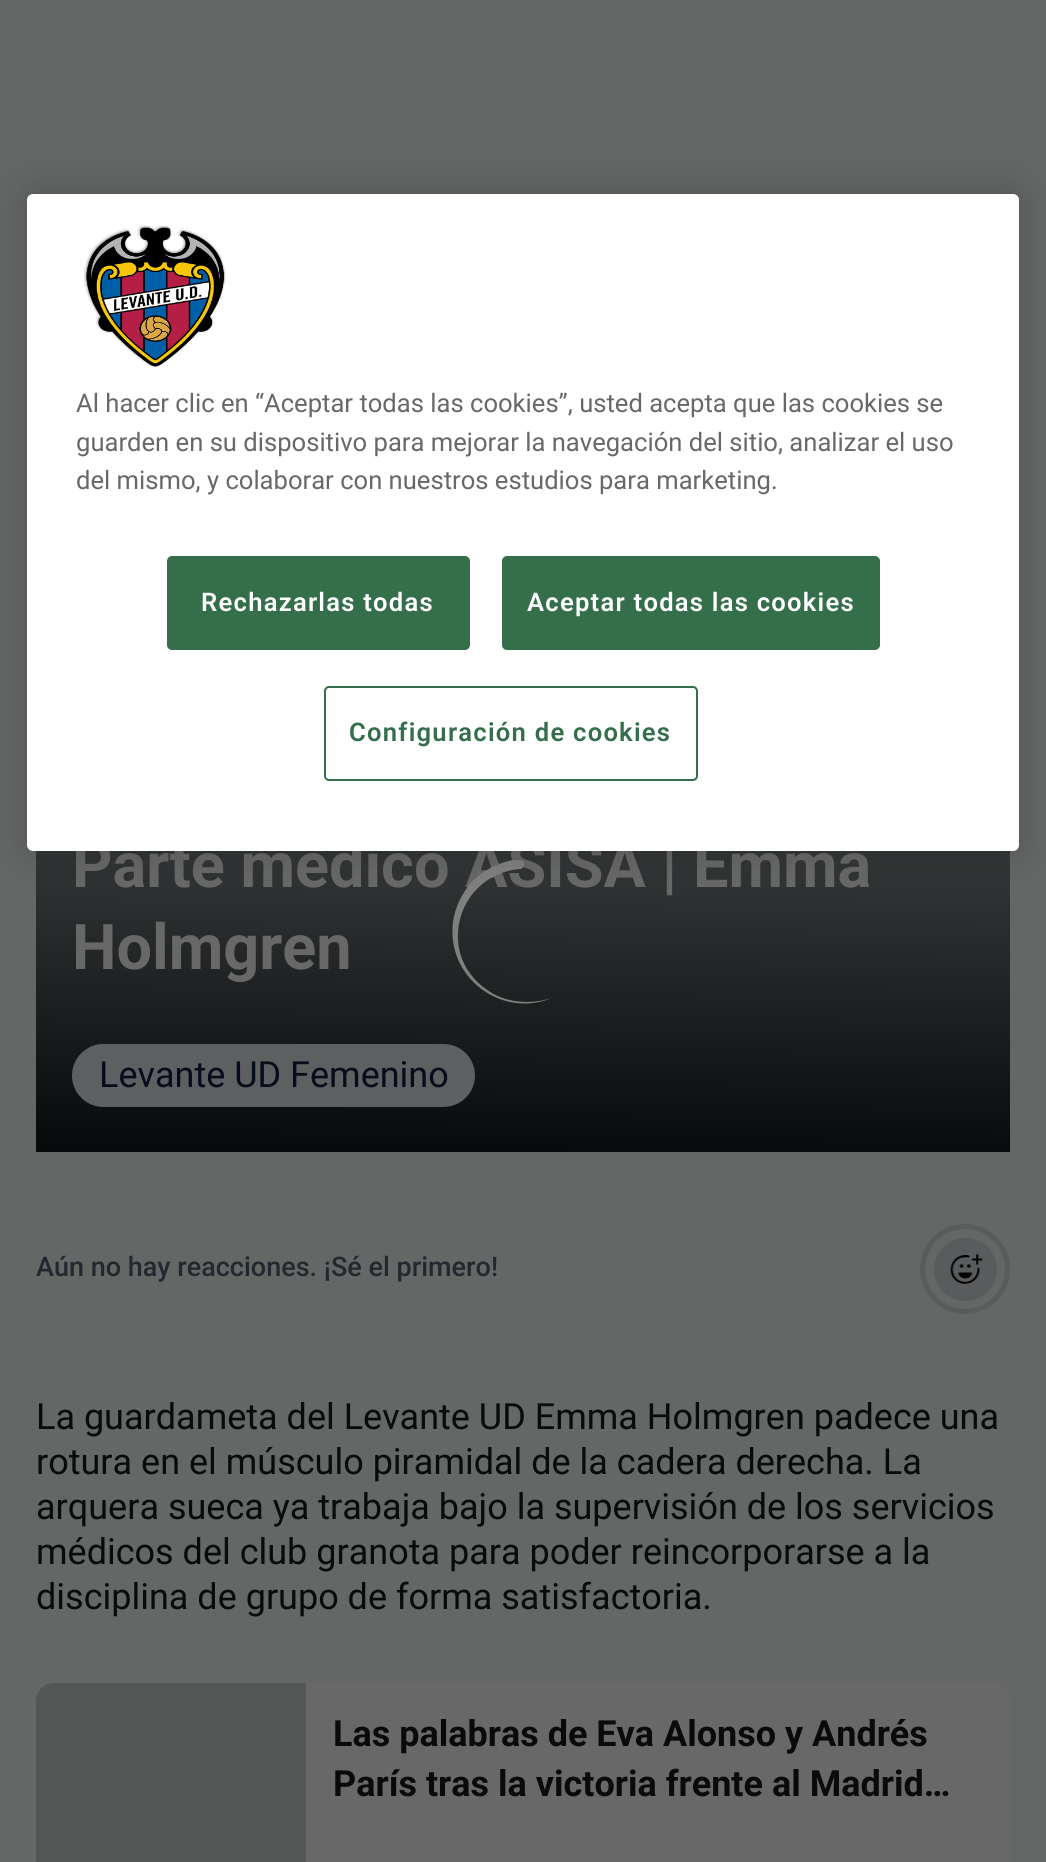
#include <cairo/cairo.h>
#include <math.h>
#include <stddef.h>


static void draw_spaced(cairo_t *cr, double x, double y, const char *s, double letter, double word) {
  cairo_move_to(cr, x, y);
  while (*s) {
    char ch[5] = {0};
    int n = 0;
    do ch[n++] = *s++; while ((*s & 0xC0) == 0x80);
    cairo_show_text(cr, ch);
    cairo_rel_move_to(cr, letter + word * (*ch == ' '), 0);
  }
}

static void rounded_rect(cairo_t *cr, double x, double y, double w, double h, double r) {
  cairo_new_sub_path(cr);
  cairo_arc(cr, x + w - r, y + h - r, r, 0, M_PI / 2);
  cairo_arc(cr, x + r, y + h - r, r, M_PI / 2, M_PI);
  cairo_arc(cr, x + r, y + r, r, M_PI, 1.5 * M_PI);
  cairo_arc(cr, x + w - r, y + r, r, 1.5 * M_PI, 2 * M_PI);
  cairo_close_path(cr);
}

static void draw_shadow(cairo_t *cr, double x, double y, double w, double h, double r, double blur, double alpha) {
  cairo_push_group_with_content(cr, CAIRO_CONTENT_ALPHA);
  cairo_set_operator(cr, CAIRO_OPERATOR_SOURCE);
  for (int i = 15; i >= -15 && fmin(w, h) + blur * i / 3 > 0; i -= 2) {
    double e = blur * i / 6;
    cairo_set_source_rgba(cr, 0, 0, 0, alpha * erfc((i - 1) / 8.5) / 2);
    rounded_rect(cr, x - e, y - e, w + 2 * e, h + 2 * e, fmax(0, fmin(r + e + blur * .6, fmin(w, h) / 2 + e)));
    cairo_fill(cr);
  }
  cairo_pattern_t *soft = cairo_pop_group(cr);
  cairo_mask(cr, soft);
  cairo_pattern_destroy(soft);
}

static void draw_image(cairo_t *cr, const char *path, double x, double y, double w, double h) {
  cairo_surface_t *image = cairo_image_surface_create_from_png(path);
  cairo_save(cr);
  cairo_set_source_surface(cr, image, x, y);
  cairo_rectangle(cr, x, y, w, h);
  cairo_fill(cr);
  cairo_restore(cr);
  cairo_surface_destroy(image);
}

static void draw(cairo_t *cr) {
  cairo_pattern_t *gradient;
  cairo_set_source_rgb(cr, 101 / 255.0, 102 / 255.0, 102 / 255.0);
  cairo_paint(cr);
  gradient = cairo_pattern_create_linear(515, 1159, 531, 65);
  cairo_pattern_add_color_stop_rgba(gradient, 0.01, 8 / 255.0, 10 / 255.0, 11 / 255.0, 1);
  cairo_pattern_add_color_stop_rgba(gradient, 0.57, 99 / 255.0, 103 / 255.0, 103 / 255.0, 1);
  cairo_set_source(cr, gradient);
  cairo_pattern_destroy(gradient);
  cairo_rectangle(cr, 36, 532, 974, 620);
  cairo_fill(cr);
  cairo_set_source_rgb(cr, 94 / 255.0, 95 / 255.0, 97 / 255.0);
  rounded_rect(cr, 72, 1044, 403, 63, 31.5);
  cairo_fill(cr);
  cairo_arc(cr, 965, 1269, 42.5, 0, 2 * M_PI);
  cairo_set_source_rgb(cr, 89 / 255.0, 91 / 255.0, 93 / 255.0);
  cairo_set_line_width(cr, 5);
  cairo_stroke(cr);
  cairo_arc(cr, 965.5, 1269.5, 31.5, 0, 2 * M_PI);
  cairo_fill(cr);
  draw_image(cr, "images/2.png", 950, 1254, 33, 30);
  cairo_set_source_rgb(cr, 104 / 255.0, 104 / 255.0, 104 / 255.0);
  rounded_rect(cr, 36, 1683, 974, 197, 18);
  cairo_fill(cr);
  cairo_set_source_rgba(cr, 8 / 255.0, 10 / 255.0, 11 / 255.0, 0.2);
  cairo_new_path(cr);
  cairo_move_to(cr, 54, 1683);
  cairo_line_to(cr, 306, 1683);
  cairo_line_to(cr, 306, 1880);
  cairo_line_to(cr, 54, 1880);
  cairo_curve_to(cr, 44, 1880, 36, 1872, 36, 1862);
  cairo_line_to(cr, 36, 1701);
  cairo_curve_to(cr, 36, 1691, 44, 1683, 54, 1683);
  cairo_close_path(cr);
  cairo_fill(cr);
  cairo_select_font_face(cr, "Roboto", CAIRO_FONT_SLANT_NORMAL, CAIRO_FONT_WEIGHT_BOLD);
  cairo_set_font_size(cr, 63);
  cairo_set_source_rgb(cr, 104 / 255.0, 104 / 255.0, 104 / 255.0);
  cairo_move_to(cr, 72, 887);
  cairo_show_text(cr, "Parte médico ASISA | Emma");
  cairo_move_to(cr, 72, 969);
  cairo_show_text(cr, "Holmgren");
  cairo_select_font_face(cr, "Roboto", CAIRO_FONT_SLANT_NORMAL, CAIRO_FONT_WEIGHT_NORMAL);
  cairo_set_font_size(cr, 36);
  cairo_set_source_rgb(cr, 7 / 255.0, 12 / 255.0, 27 / 255.0);
  cairo_move_to(cr, 99, 1087);
  cairo_show_text(cr, "Levante UD Femenino");
  cairo_select_font_face(cr, "Roboto Medium", CAIRO_FONT_SLANT_NORMAL, CAIRO_FONT_WEIGHT_NORMAL);
  cairo_set_font_size(cr, 27);
  cairo_set_source_rgb(cr, 34 / 255.0, 41 / 255.0, 46 / 255.0);
  cairo_move_to(cr, 36, 1276);
  cairo_show_text(cr, "Aún no hay reacciones. ¡Sé el primero!");
  cairo_select_font_face(cr, "Roboto", CAIRO_FONT_SLANT_NORMAL, CAIRO_FONT_WEIGHT_NORMAL);
  cairo_set_font_size(cr, 36);
  cairo_set_source_rgb(cr, 8 / 255.0, 10 / 255.0, 11 / 255.0);
  cairo_move_to(cr, 36, 1429);
  cairo_show_text(cr, "La guardameta del Levante UD Emma Holmgren padece una");
  cairo_move_to(cr, 36, 1474);
  cairo_show_text(cr, "rotura en el músculo piramidal de la cadera derecha. La");
  cairo_move_to(cr, 36, 1519);
  cairo_show_text(cr, "arquera sueca ya trabaja bajo la supervisión de los servicios");
  cairo_move_to(cr, 36, 1564);
  cairo_show_text(cr, "médicos del club granota para poder reincorporarse a la");
  cairo_move_to(cr, 36, 1609);
  cairo_show_text(cr, "disciplina de grupo de forma satisfactoria.");
  cairo_select_font_face(cr, "Roboto", CAIRO_FONT_SLANT_NORMAL, CAIRO_FONT_WEIGHT_BOLD);
  cairo_move_to(cr, 333, 1746);
  cairo_show_text(cr, "Las palabras de Eva Alonso y Andrés");
  cairo_move_to(cr, 333, 1796);
  cairo_show_text(cr, "París tras la victoria frente al Madrid…");
  cairo_save(cr);
  cairo_rectangle(cr, 452, 860, 144, 144);
  cairo_clip(cr);
  cairo_set_source_rgb(cr, 128 / 255.0, 128 / 255.0, 128 / 255.0);
  cairo_set_fill_rule(cr, CAIRO_FILL_RULE_EVEN_ODD);
  cairo_new_path(cr);
  cairo_move_to(cr, 520, 869);
  cairo_curve_to(cr, 483, 872, 456, 903, 458, 940);
  cairo_curve_to(cr, 459, 960, 470, 978, 486, 989);
  cairo_curve_to(cr, 504, 1003, 530, 1005, 552, 998);
  cairo_curve_to(cr, 501, 1019, 446, 977, 453, 922);
  cairo_curve_to(cr, 455, 908, 461, 895, 470, 884);
  cairo_curve_to(cr, 479, 874, 491, 866, 505, 862);
  cairo_curve_to(cr, 506, 862, 521, 856, 524, 862);
  cairo_curve_to(cr, 525, 865, 523, 869, 520, 869);
  cairo_close_path(cr);
  cairo_fill(cr);
  cairo_restore(cr);
  cairo_set_source_rgb(cr, 0, 0, 0);
  draw_shadow(cr, 27, 194, 992, 657, 6, 20, 0.2);
  cairo_set_source_rgb(cr, 1, 1, 1);
  rounded_rect(cr, 27, 194, 992, 657, 6);
  cairo_fill(cr);
  rounded_rect(cr, 325, 687, 372, 93, 4);
  cairo_set_source_rgb(cr, 52 / 255.0, 110 / 255.0, 74 / 255.0);
  cairo_set_line_width(cr, 2);
  cairo_stroke(cr);
  cairo_select_font_face(cr, "Roboto SemiBold", CAIRO_FONT_SLANT_NORMAL, CAIRO_FONT_WEIGHT_NORMAL);
  cairo_set_font_size(cr, 25.6);
  draw_spaced(cr, 349, 741, "Configuración de cookies", 1.25, 0);
  rounded_rect(cr, 503, 557, 376, 92, 4);
  cairo_fill_preserve(cr);
  cairo_stroke(cr);
  cairo_set_source_rgb(cr, 1, 1, 1);
  draw_spaced(cr, 527, 611, "Aceptar todas las cookies", 1.25, 0);
  cairo_set_source_rgb(cr, 52 / 255.0, 110 / 255.0, 74 / 255.0);
  rounded_rect(cr, 168, 557, 301, 92, 4);
  cairo_fill_preserve(cr);
  cairo_stroke(cr);
  cairo_set_source_rgb(cr, 1, 1, 1);
  draw_spaced(cr, 201, 611, "Rechazarlas todas", 1.25, 0);
  draw_image(cr, "images/1.png", 84, 225, 142, 142);
  cairo_select_font_face(cr, "Roboto", CAIRO_FONT_SLANT_NORMAL, CAIRO_FONT_WEIGHT_NORMAL);
  cairo_set_source_rgb(cr, 104 / 255.0, 104 / 255.0, 104 / 255.0);
  cairo_move_to(cr, 76, 489);
  cairo_show_text(cr, "del mismo, y colaborar con nuestros estudios para marketing.");
  cairo_move_to(cr, 76, 451);
  cairo_show_text(cr, "guarden en su dispositivo para mejorar la navegación del sitio, analizar el uso");
  cairo_move_to(cr, 76, 412);
  cairo_show_text(cr, "Al hacer clic en “Aceptar todas las cookies”, usted acepta que las cookies se");
}

int main(void) {
  cairo_surface_t *surface = cairo_image_surface_create(CAIRO_FORMAT_RGB24, 1046, 1862);
  cairo_t *cr = cairo_create(surface);
  cairo_font_options_t *options = cairo_font_options_create();
  cairo_font_options_set_hint_metrics(options, CAIRO_HINT_METRICS_OFF);
  cairo_font_options_set_hint_style(options, CAIRO_HINT_STYLE_NONE);
  cairo_set_font_options(cr, options);
  cairo_set_miter_limit(cr, 4);
  draw(cr);
  cairo_surface_write_to_png(surface, "out.png");
  cairo_font_options_destroy(options);
  cairo_destroy(cr);
  cairo_surface_destroy(surface);
  return 0;
}
